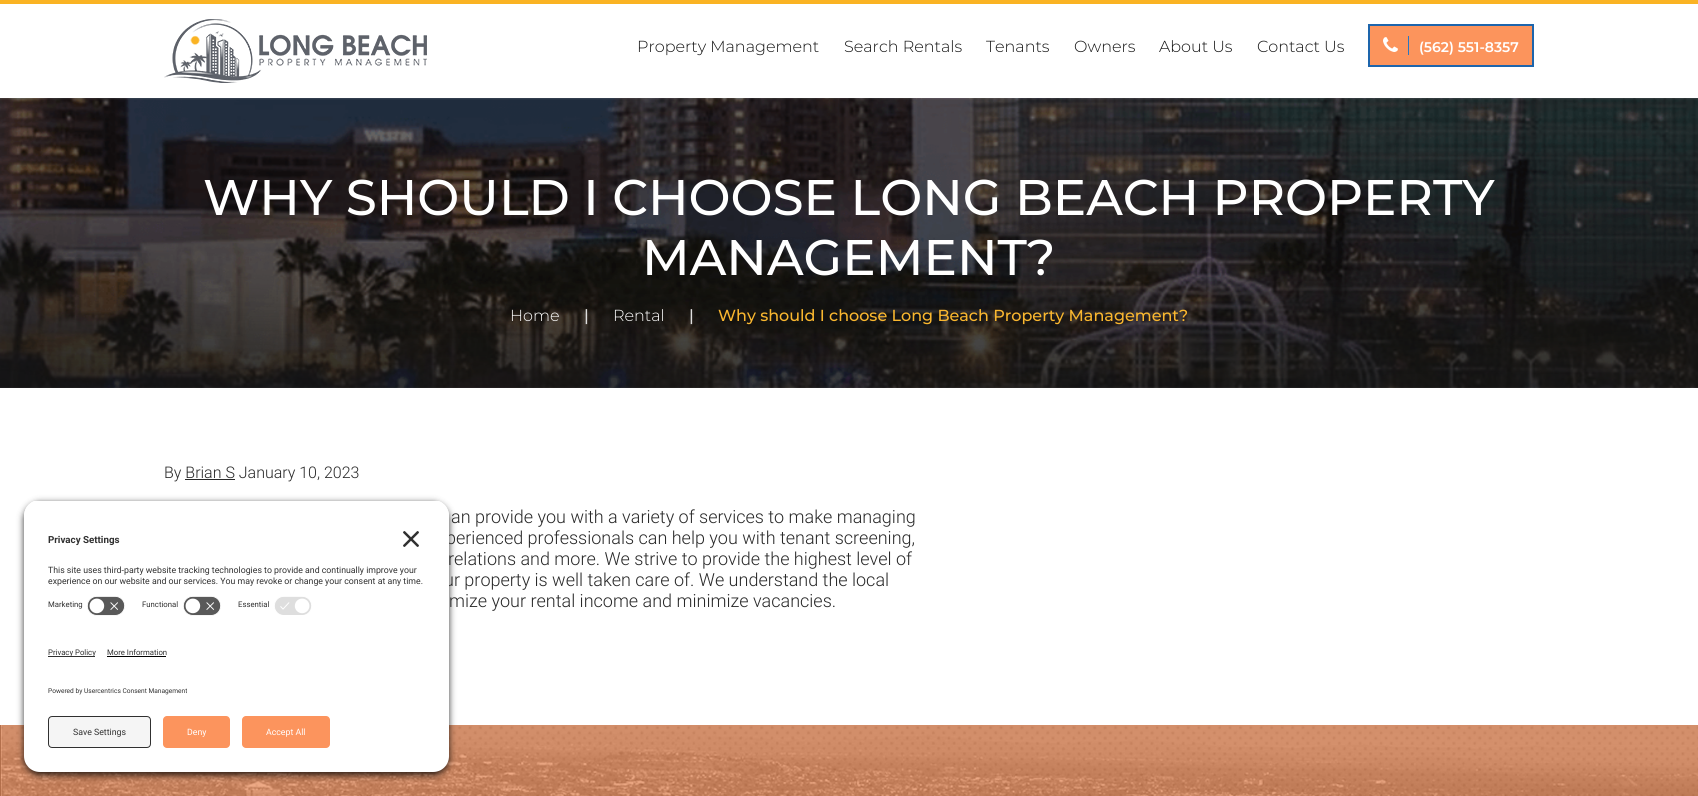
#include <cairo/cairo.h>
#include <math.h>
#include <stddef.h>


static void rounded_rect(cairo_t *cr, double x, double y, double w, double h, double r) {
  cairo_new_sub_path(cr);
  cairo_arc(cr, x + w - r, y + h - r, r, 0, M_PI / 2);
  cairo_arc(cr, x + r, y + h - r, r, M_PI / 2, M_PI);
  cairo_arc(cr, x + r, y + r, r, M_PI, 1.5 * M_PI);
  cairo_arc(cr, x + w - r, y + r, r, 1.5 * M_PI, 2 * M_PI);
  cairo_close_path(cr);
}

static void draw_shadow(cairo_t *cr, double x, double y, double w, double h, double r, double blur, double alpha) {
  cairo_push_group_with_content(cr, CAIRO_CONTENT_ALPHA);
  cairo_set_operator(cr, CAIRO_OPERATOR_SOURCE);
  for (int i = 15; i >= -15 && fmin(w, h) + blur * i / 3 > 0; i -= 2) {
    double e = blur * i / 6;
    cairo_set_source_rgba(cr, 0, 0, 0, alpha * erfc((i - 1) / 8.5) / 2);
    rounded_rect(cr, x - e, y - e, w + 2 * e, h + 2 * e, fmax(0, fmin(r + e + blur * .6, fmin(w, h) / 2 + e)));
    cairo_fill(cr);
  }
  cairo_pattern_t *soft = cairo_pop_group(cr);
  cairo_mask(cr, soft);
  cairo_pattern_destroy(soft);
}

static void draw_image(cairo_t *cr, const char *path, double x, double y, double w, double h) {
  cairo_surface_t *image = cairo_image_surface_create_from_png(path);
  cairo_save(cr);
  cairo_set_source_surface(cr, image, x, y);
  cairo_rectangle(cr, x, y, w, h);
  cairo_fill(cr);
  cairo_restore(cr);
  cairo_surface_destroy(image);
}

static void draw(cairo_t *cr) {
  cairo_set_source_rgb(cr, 1, 1, 1);
  cairo_paint(cr);
  cairo_set_source_rgb(cr, 250 / 255.0, 179 / 255.0, 35 / 255.0);
  cairo_rectangle(cr, 0, 0, 1698, 4);
  cairo_fill(cr);
  draw_image(cr, "images/1.png", 164, 19, 263, 64);
  cairo_set_source_rgb(cr, 252 / 255.0, 148 / 255.0, 92 / 255.0);
  cairo_rectangle(cr, 1369, 25, 164, 41);
  cairo_fill_preserve(cr);
  cairo_set_source_rgb(cr, 29 / 255.0, 101 / 255.0, 172 / 255.0);
  cairo_stroke(cr);
  draw_image(cr, "images/2.png", 1383, 37, 15, 15);
  cairo_set_source_rgb(cr, 42 / 255.0, 118 / 255.0, 194 / 255.0);
  cairo_rectangle(cr, 1408, 36, 1, 19);
  cairo_fill(cr);
  draw_image(cr, "images/3.png", 0, 98, 1698, 290);
  draw_image(cr, "images/4.png", 0, 197, 1698, 191);
  cairo_set_source_rgb(cr, 41 / 255.0, 41 / 255.0, 41 / 255.0);
  cairo_rectangle(cr, 185, 479, 50, 1);
  cairo_fill(cr);
  draw_image(cr, "images/5.png", 0, 725, 1698, 71);
  cairo_set_source_rgb(cr, 0, 0, 0);
  draw_shadow(cr, 24, 503, 425, 272, 16, 3.5, 0.8);
  cairo_set_source_rgb(cr, 1, 1, 1);
  cairo_new_path(cr);
  cairo_move_to(cr, 24, 631);
  cairo_line_to(cr, 449, 631);
  cairo_line_to(cr, 449, 756);
  cairo_curve_to(cr, 449, 765, 442, 772, 433, 772);
  cairo_line_to(cr, 40, 772);
  cairo_curve_to(cr, 31, 772, 24, 765, 24, 756);
  cairo_close_path(cr);
  cairo_fill(cr);
  cairo_set_source_rgb(cr, 48 / 255.0, 48 / 255.0, 48 / 255.0);
  cairo_rectangle(cr, 48, 656, 47, 1);
  cairo_fill(cr);
  cairo_set_source_rgb(cr, 0, 0, 0);
  cairo_rectangle(cr, 107, 656, 59, 1);
  cairo_fill(cr);
  cairo_set_source_rgb(cr, 245 / 255.0, 245 / 255.0, 245 / 255.0);
  rounded_rect(cr, 48.5, 716.5, 102, 31, 3.5);
  cairo_fill_preserve(cr);
  cairo_set_source_rgb(cr, 48 / 255.0, 48 / 255.0, 48 / 255.0);
  cairo_set_line_width(cr, 1);
  cairo_stroke(cr);
  cairo_set_source_rgb(cr, 252 / 255.0, 148 / 255.0, 93 / 255.0);
  rounded_rect(cr, 163, 716, 67, 32, 4);
  cairo_fill(cr);
  rounded_rect(cr, 242, 716, 88, 32, 4);
  cairo_fill(cr);
  cairo_select_font_face(cr, "Montserrat Light", CAIRO_FONT_SLANT_NORMAL, CAIRO_FONT_WEIGHT_NORMAL);
  cairo_set_font_size(cr, 16);
  cairo_set_source_rgb(cr, 20 / 255.0, 20 / 255.0, 20 / 255.0);
  cairo_move_to(cr, 637, 52);
  cairo_show_text(cr, "Property Management");
  cairo_move_to(cr, 844, 52);
  cairo_show_text(cr, "Search Rentals");
  cairo_move_to(cr, 986, 52);
  cairo_show_text(cr, "Tenants");
  cairo_move_to(cr, 1074, 52);
  cairo_show_text(cr, "Owners");
  cairo_move_to(cr, 1159, 52);
  cairo_show_text(cr, "About Us");
  cairo_move_to(cr, 1257, 52);
  cairo_show_text(cr, "Contact Us");
  cairo_select_font_face(cr, "Montserrat SemiBold", CAIRO_FONT_SLANT_NORMAL, CAIRO_FONT_WEIGHT_NORMAL);
  cairo_set_font_size(cr, 14);
  cairo_set_source_rgb(cr, 1, 1, 1);
  cairo_move_to(cr, 1419, 52);
  cairo_show_text(cr, "(562) 551-8357");
  cairo_select_font_face(cr, "Montserrat Medium", CAIRO_FONT_SLANT_NORMAL, CAIRO_FONT_WEIGHT_NORMAL);
  cairo_set_font_size(cr, 50);
  cairo_move_to(cr, 203, 215);
  cairo_show_text(cr, "WHY SHOULD I CHOOSE LONG BEACH PROPERTY");
  cairo_move_to(cr, 642, 275);
  cairo_show_text(cr, "MANAGEMENT?");
  cairo_select_font_face(cr, "Montserrat Light", CAIRO_FONT_SLANT_NORMAL, CAIRO_FONT_WEIGHT_NORMAL);
  cairo_set_font_size(cr, 16);
  cairo_move_to(cr, 510, 321);
  cairo_show_text(cr, "Home");
  cairo_select_font_face(cr, "Montserrat Medium", CAIRO_FONT_SLANT_NORMAL, CAIRO_FONT_WEIGHT_NORMAL);
  cairo_set_source_rgb(cr, 223 / 255.0, 223 / 255.0, 223 / 255.0);
  cairo_move_to(cr, 584, 321);
  cairo_show_text(cr, "|");
  cairo_select_font_face(cr, "Montserrat Light", CAIRO_FONT_SLANT_NORMAL, CAIRO_FONT_WEIGHT_NORMAL);
  cairo_set_source_rgb(cr, 1, 1, 1);
  cairo_move_to(cr, 613, 321);
  cairo_show_text(cr, "Rental");
  cairo_select_font_face(cr, "Montserrat Medium", CAIRO_FONT_SLANT_NORMAL, CAIRO_FONT_WEIGHT_NORMAL);
  cairo_set_source_rgb(cr, 223 / 255.0, 223 / 255.0, 223 / 255.0);
  cairo_move_to(cr, 689, 321);
  cairo_show_text(cr, "|");
  cairo_set_source_rgb(cr, 250 / 255.0, 183 / 255.0, 47 / 255.0);
  cairo_move_to(cr, 718, 321);
  cairo_show_text(cr, "Why should I choose Long Beach Property Management?");
  cairo_select_font_face(cr, "Roboto Light", CAIRO_FONT_SLANT_NORMAL, CAIRO_FONT_WEIGHT_NORMAL);
  cairo_set_source_rgb(cr, 41 / 255.0, 41 / 255.0, 41 / 255.0);
  cairo_move_to(cr, 164, 478);
  cairo_show_text(cr, "By Brian S January 10, 2023");
  cairo_set_font_size(cr, 18);
  cairo_move_to(cr, 451, 523);
  cairo_show_text(cr, "an provide you with a variety of services to make managing");
  cairo_move_to(cr, 446, 544);
  cairo_show_text(cr, "perienced professionals can help you with tenant screening,");
  cairo_move_to(cr, 448, 565);
  cairo_show_text(cr, "relations and more. We strive to provide the highest level of");
  cairo_move_to(cr, 444, 586);
  cairo_show_text(cr, "ur property is well taken care of. We understand the local");
  cairo_move_to(cr, 449, 607);
  cairo_show_text(cr, "mize your rental income and minimize vacancies.");
  cairo_save(cr);
  cairo_new_path(cr);
  cairo_move_to(cr, 40, 500);
  cairo_line_to(cr, 433, 500);
  cairo_curve_to(cr, 442, 500, 449, 507, 449, 516);
  cairo_line_to(cr, 449, 631);
  cairo_line_to(cr, 24, 631);
  cairo_line_to(cr, 24, 516);
  cairo_curve_to(cr, 24, 507, 31, 500, 40, 500);
  cairo_close_path(cr);
  cairo_clip(cr);
  cairo_set_source_rgb(cr, 1, 1, 1);
  cairo_rectangle(cr, 24, 501, 425, 130);
  cairo_fill(cr);
  cairo_rectangle(cr, 24, 501, 425, 90);
  cairo_fill(cr);
  cairo_restore(cr);
  cairo_select_font_face(cr, "Roboto", CAIRO_FONT_SLANT_NORMAL, CAIRO_FONT_WEIGHT_BOLD);
  cairo_set_font_size(cr, 9.75);
  cairo_set_source_rgb(cr, 48 / 255.0, 48 / 255.0, 48 / 255.0);
  cairo_move_to(cr, 48, 543);
  cairo_show_text(cr, "Privacy Settings");
  draw_image(cr, "images/6.png", 403, 531, 16, 16);
  cairo_select_font_face(cr, "Roboto", CAIRO_FONT_SLANT_NORMAL, CAIRO_FONT_WEIGHT_NORMAL);
  cairo_set_font_size(cr, 8.75);
  cairo_move_to(cr, 48, 573);
  cairo_show_text(cr, "This site uses third-party website tracking technologies to provide and continually improve your");
  cairo_move_to(cr, 48, 584);
  cairo_show_text(cr, "experience on our website and our services. You may revoke or change your consent at any time.");
  cairo_set_font_size(cr, 7.75);
  cairo_move_to(cr, 48, 607);
  cairo_show_text(cr, "Marketing");
  draw_image(cr, "images/7.png", 87, 596, 38, 20);
  cairo_move_to(cr, 142, 607);
  cairo_show_text(cr, "Functional");
  draw_image(cr, "images/7.png", 183, 596, 38, 20);
  cairo_move_to(cr, 238, 607);
  cairo_show_text(cr, "Essential");
  draw_image(cr, "images/8.png", 274, 596, 38, 19);
  cairo_move_to(cr, 48, 655);
  cairo_show_text(cr, "Privacy Policy");
  cairo_move_to(cr, 107, 655);
  cairo_show_text(cr, "More Information");
  cairo_set_font_size(cr, 6.6);
  cairo_move_to(cr, 48, 693);
  cairo_show_text(cr, "Powered by Usercentrics Consent Management");
  cairo_set_font_size(cr, 8.75);
  cairo_move_to(cr, 73, 735);
  cairo_show_text(cr, "Save Settings");
  cairo_set_source_rgb(cr, 1, 1, 1);
  cairo_move_to(cr, 187, 735);
  cairo_show_text(cr, "Deny");
  cairo_move_to(cr, 266, 735);
  cairo_show_text(cr, "Accept All");
}

int main(void) {
  cairo_surface_t *surface = cairo_image_surface_create(CAIRO_FORMAT_RGB24, 1698, 796);
  cairo_t *cr = cairo_create(surface);
  cairo_font_options_t *options = cairo_font_options_create();
  cairo_font_options_set_hint_metrics(options, CAIRO_HINT_METRICS_OFF);
  cairo_font_options_set_hint_style(options, CAIRO_HINT_STYLE_NONE);
  cairo_set_font_options(cr, options);
  cairo_set_miter_limit(cr, 4);
  draw(cr);
  cairo_surface_write_to_png(surface, "out.png");
  cairo_font_options_destroy(options);
  cairo_destroy(cr);
  cairo_surface_destroy(surface);
  return 0;
}
